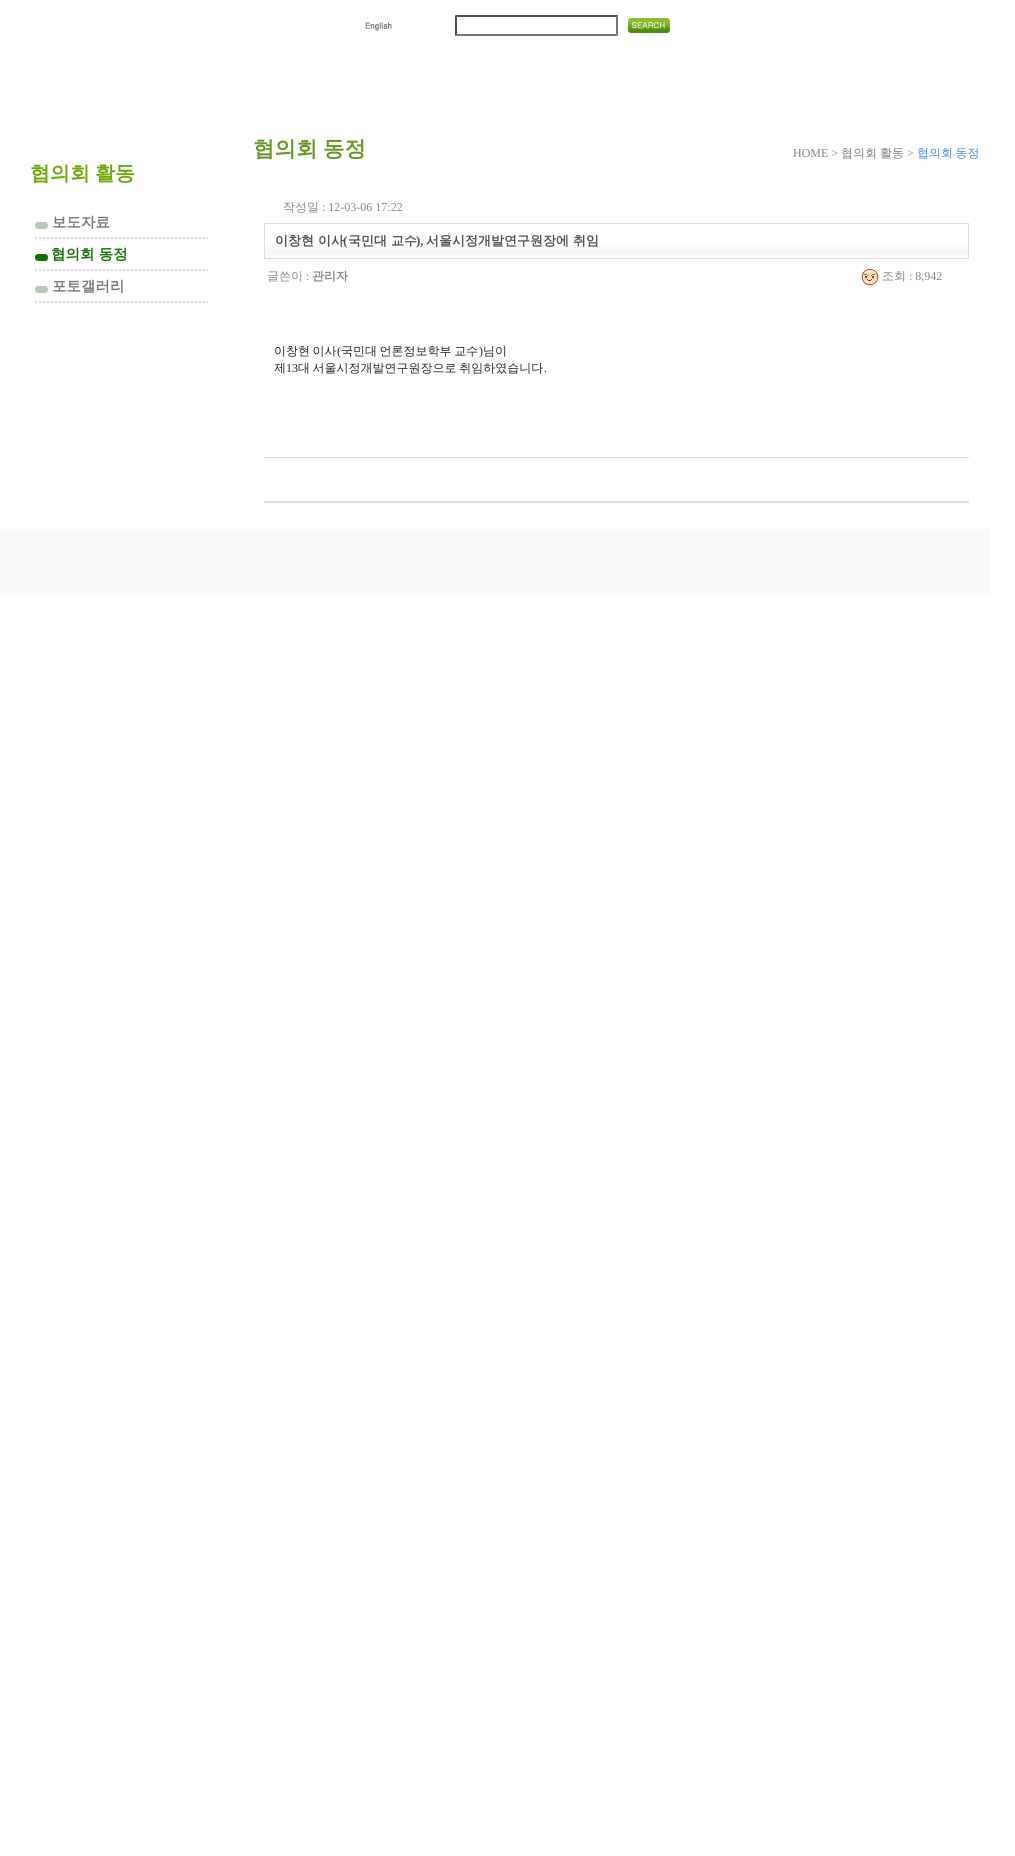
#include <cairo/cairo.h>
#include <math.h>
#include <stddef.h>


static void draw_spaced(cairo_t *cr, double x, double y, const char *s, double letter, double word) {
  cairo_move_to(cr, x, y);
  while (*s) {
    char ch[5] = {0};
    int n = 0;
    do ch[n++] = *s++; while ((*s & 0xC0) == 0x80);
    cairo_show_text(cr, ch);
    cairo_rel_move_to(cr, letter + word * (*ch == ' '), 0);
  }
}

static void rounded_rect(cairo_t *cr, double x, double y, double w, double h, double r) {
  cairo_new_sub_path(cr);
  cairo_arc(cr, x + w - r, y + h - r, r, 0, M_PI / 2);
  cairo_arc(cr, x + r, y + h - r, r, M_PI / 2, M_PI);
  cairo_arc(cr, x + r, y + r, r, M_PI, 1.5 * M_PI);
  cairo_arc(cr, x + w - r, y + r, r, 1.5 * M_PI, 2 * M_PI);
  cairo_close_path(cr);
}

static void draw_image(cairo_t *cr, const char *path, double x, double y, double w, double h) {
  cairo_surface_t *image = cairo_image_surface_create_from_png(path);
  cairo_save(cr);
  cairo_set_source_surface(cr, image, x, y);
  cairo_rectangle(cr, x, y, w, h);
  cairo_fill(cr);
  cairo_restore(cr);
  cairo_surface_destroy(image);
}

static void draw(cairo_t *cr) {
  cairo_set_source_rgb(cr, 1, 1, 1);
  cairo_paint(cr);
  draw_image(cr, "images/1.png", 365, 22, 27, 9);
  cairo_set_source_rgb(cr, 79 / 255.0, 79 / 255.0, 79 / 255.0);
  cairo_new_path(cr);
  cairo_move_to(cr, 455, 15);
  cairo_line_to(cr, 618, 15);
  cairo_line_to(cr, 616, 17);
  cairo_line_to(cr, 457, 17);
  cairo_close_path(cr);
  cairo_fill(cr);
  cairo_set_source_rgb(cr, 118 / 255.0, 118 / 255.0, 118 / 255.0);
  cairo_new_path(cr);
  cairo_move_to(cr, 618, 15);
  cairo_line_to(cr, 618, 36);
  cairo_line_to(cr, 616, 34);
  cairo_line_to(cr, 616, 17);
  cairo_close_path(cr);
  cairo_fill(cr);
  cairo_new_path(cr);
  cairo_move_to(cr, 618, 36);
  cairo_line_to(cr, 455, 36);
  cairo_line_to(cr, 457, 34);
  cairo_line_to(cr, 616, 34);
  cairo_close_path(cr);
  cairo_fill(cr);
  cairo_set_source_rgb(cr, 79 / 255.0, 79 / 255.0, 79 / 255.0);
  cairo_new_path(cr);
  cairo_move_to(cr, 455, 36);
  cairo_line_to(cr, 455, 15);
  cairo_line_to(cr, 457, 17);
  cairo_line_to(cr, 457, 34);
  cairo_close_path(cr);
  cairo_fill(cr);
  draw_image(cr, "images/2.png", 628, 18, 42, 15);
  cairo_new_path(cr);
  cairo_move_to(cr, 35, 238);
  cairo_line_to(cr, 208, 238);
  cairo_set_source_rgb(cr, 221 / 255.0, 221 / 255.0, 221 / 255.0);
  cairo_set_dash(cr, (double[]){2, 2}, 2, 0);
  cairo_stroke(cr);
  cairo_set_source_rgb(cr, 182 / 255.0, 201 / 255.0, 179 / 255.0);
  rounded_rect(cr, 35, 222, 13, 7, 3);
  cairo_fill(cr);
  cairo_new_path(cr);
  cairo_move_to(cr, 35, 270);
  cairo_line_to(cr, 208, 270);
  cairo_set_source_rgb(cr, 221 / 255.0, 221 / 255.0, 221 / 255.0);
  cairo_stroke(cr);
  cairo_set_source_rgb(cr, 17 / 255.0, 110 / 255.0, 0);
  rounded_rect(cr, 35, 254, 13, 7, 3);
  cairo_fill(cr);
  cairo_new_path(cr);
  cairo_move_to(cr, 35, 302);
  cairo_line_to(cr, 208, 302);
  cairo_set_source_rgb(cr, 221 / 255.0, 221 / 255.0, 221 / 255.0);
  cairo_stroke(cr);
  cairo_set_source_rgb(cr, 182 / 255.0, 201 / 255.0, 179 / 255.0);
  rounded_rect(cr, 35, 286, 13, 7, 3);
  cairo_fill(cr);
  draw_image(cr, "images/3.png", 265, 245, 703, 11);
  cairo_rectangle(cr, 264.5, 223.5, 704, 35);
  cairo_set_source_rgb(cr, 221 / 255.0, 221 / 255.0, 221 / 255.0);
  cairo_set_line_width(cr, 1);
  cairo_set_dash(cr, NULL, 0, 0);
  cairo_stroke(cr);
  draw_image(cr, "images/4.png", 861, 269, 18, 17);
  cairo_rectangle(cr, 264, 457, 705, 1);
  cairo_fill(cr);
  cairo_set_source_rgb(cr, 222 / 255.0, 222 / 255.0, 222 / 255.0);
  cairo_rectangle(cr, 264, 501, 705, 2);
  cairo_fill(cr);
  cairo_set_source_rgb(cr, 249 / 255.0, 249 / 255.0, 249 / 255.0);
  cairo_rectangle(cr, 0, 529, 990, 66);
  cairo_fill(cr);
  cairo_select_font_face(cr, "WenQuanYi Zen Hei", CAIRO_FONT_SLANT_NORMAL, CAIRO_FONT_WEIGHT_BOLD);
  cairo_set_font_size(cr, 20);
  cairo_set_source_rgb(cr, 108 / 255.0, 169 / 255.0, 4 / 255.0);
  draw_spaced(cr, 30, 180, "협의회 활동", 0, -1);
  cairo_set_font_size(cr, 14.5);
  cairo_set_source_rgb(cr, 119 / 255.0, 119 / 255.0, 119 / 255.0);
  cairo_move_to(cr, 52, 227);
  cairo_show_text(cr, "보도자료");
  cairo_set_source_rgb(cr, 17 / 255.0, 110 / 255.0, 0);
  cairo_move_to(cr, 51, 259);
  cairo_show_text(cr, "협의회 동정");
  cairo_set_source_rgb(cr, 119 / 255.0, 119 / 255.0, 119 / 255.0);
  cairo_move_to(cr, 52, 291);
  cairo_show_text(cr, "포토갤러리");
  cairo_set_font_size(cr, 21.5);
  cairo_set_source_rgb(cr, 104 / 255.0, 150 / 255.0, 35 / 255.0);
  draw_spaced(cr, 253, 156, "협의회 동정", 0, -1);
  cairo_select_font_face(cr, "Liberation Serif", CAIRO_FONT_SLANT_NORMAL, CAIRO_FONT_WEIGHT_NORMAL);
  cairo_set_font_size(cr, 12);
  cairo_set_source_rgb(cr, 128 / 255.0, 128 / 255.0, 128 / 255.0);
  cairo_move_to(cr, 793, 157);
  cairo_show_text(cr, "HOME >");
  cairo_select_font_face(cr, "WenQuanYi Zen Hei Medium", CAIRO_FONT_SLANT_NORMAL, CAIRO_FONT_WEIGHT_NORMAL);
  cairo_move_to(cr, 841, 157);
  cairo_show_text(cr, "협의회");
  cairo_move_to(cr, 880, 157);
  cairo_show_text(cr, "활동");
  cairo_select_font_face(cr, "Liberation Serif", CAIRO_FONT_SLANT_NORMAL, CAIRO_FONT_WEIGHT_NORMAL);
  cairo_move_to(cr, 907, 157);
  cairo_show_text(cr, ">");
  cairo_select_font_face(cr, "WenQuanYi Zen Hei Medium", CAIRO_FONT_SLANT_NORMAL, CAIRO_FONT_WEIGHT_NORMAL);
  cairo_set_source_rgb(cr, 68 / 255.0, 140 / 255.0, 205 / 255.0);
  draw_spaced(cr, 917, 157, "협의회 동정", 0, -1);
  cairo_set_source_rgb(cr, 136 / 255.0, 136 / 255.0, 136 / 255.0);
  cairo_move_to(cr, 283, 211);
  cairo_show_text(cr, "작성일");
  cairo_select_font_face(cr, "Liberation Serif", CAIRO_FONT_SLANT_NORMAL, CAIRO_FONT_WEIGHT_NORMAL);
  cairo_move_to(cr, 322, 211);
  cairo_show_text(cr, ": 12-03-06 17:22");
  cairo_select_font_face(cr, "WenQuanYi Zen Hei", CAIRO_FONT_SLANT_NORMAL, CAIRO_FONT_WEIGHT_BOLD);
  cairo_set_font_size(cr, 13);
  cairo_set_source_rgb(cr, 80 / 255.0, 80 / 255.0, 80 / 255.0);
  cairo_move_to(cr, 275, 245);
  cairo_show_text(cr, "이창현 이사");
  cairo_select_font_face(cr, "Liberation Serif", CAIRO_FONT_SLANT_NORMAL, CAIRO_FONT_WEIGHT_BOLD);
  cairo_move_to(cr, 343, 245);
  cairo_show_text(cr, "(");
  cairo_select_font_face(cr, "WenQuanYi Zen Hei", CAIRO_FONT_SLANT_NORMAL, CAIRO_FONT_WEIGHT_BOLD);
  cairo_move_to(cr, 348, 245);
  cairo_show_text(cr, "국민대 교수");
  cairo_select_font_face(cr, "Liberation Serif", CAIRO_FONT_SLANT_NORMAL, CAIRO_FONT_WEIGHT_BOLD);
  cairo_move_to(cr, 416, 245);
  cairo_show_text(cr, "),");
  cairo_select_font_face(cr, "WenQuanYi Zen Hei", CAIRO_FONT_SLANT_NORMAL, CAIRO_FONT_WEIGHT_BOLD);
  cairo_move_to(cr, 426, 245);
  cairo_show_text(cr, "서울시정개발연구원장에 취임");
  cairo_select_font_face(cr, "WenQuanYi Zen Hei Medium", CAIRO_FONT_SLANT_NORMAL, CAIRO_FONT_WEIGHT_NORMAL);
  cairo_set_font_size(cr, 12);
  cairo_set_source_rgb(cr, 136 / 255.0, 136 / 255.0, 136 / 255.0);
  cairo_move_to(cr, 267, 280);
  cairo_show_text(cr, "글쓴이");
  cairo_select_font_face(cr, "Liberation Serif", CAIRO_FONT_SLANT_NORMAL, CAIRO_FONT_WEIGHT_NORMAL);
  cairo_move_to(cr, 306, 280);
  cairo_show_text(cr, ":");
  cairo_select_font_face(cr, "WenQuanYi Zen Hei", CAIRO_FONT_SLANT_NORMAL, CAIRO_FONT_WEIGHT_BOLD);
  cairo_move_to(cr, 312, 280);
  cairo_show_text(cr, "관리자");
  cairo_select_font_face(cr, "WenQuanYi Zen Hei Medium", CAIRO_FONT_SLANT_NORMAL, CAIRO_FONT_WEIGHT_NORMAL);
  cairo_move_to(cr, 882, 280);
  cairo_show_text(cr, "조회");
  cairo_select_font_face(cr, "Liberation Serif", CAIRO_FONT_SLANT_NORMAL, CAIRO_FONT_WEIGHT_NORMAL);
  cairo_move_to(cr, 909, 280);
  cairo_show_text(cr, ": 8,942");
  cairo_select_font_face(cr, "WenQuanYi Zen Hei Medium", CAIRO_FONT_SLANT_NORMAL, CAIRO_FONT_WEIGHT_NORMAL);
  cairo_set_source_rgb(cr, 34 / 255.0, 34 / 255.0, 34 / 255.0);
  draw_spaced(cr, 274, 355, "이창현 이사", 0, -1);
  cairo_select_font_face(cr, "Liberation Serif", CAIRO_FONT_SLANT_NORMAL, CAIRO_FONT_WEIGHT_NORMAL);
  cairo_move_to(cr, 337, 355);
  cairo_show_text(cr, "(");
  cairo_select_font_face(cr, "WenQuanYi Zen Hei Medium", CAIRO_FONT_SLANT_NORMAL, CAIRO_FONT_WEIGHT_NORMAL);
  draw_spaced(cr, 341, 355, "국민대 언론정보학부 교수", 0, -1);
  cairo_select_font_face(cr, "Liberation Serif", CAIRO_FONT_SLANT_NORMAL, CAIRO_FONT_WEIGHT_NORMAL);
  cairo_move_to(cr, 479, 355);
  cairo_show_text(cr, ")");
  cairo_select_font_face(cr, "WenQuanYi Zen Hei Medium", CAIRO_FONT_SLANT_NORMAL, CAIRO_FONT_WEIGHT_NORMAL);
  cairo_move_to(cr, 483, 355);
  cairo_show_text(cr, "님이");
  cairo_move_to(cr, 274, 372);
  cairo_show_text(cr, "제");
  cairo_select_font_face(cr, "Liberation Serif", CAIRO_FONT_SLANT_NORMAL, CAIRO_FONT_WEIGHT_NORMAL);
  cairo_move_to(cr, 286, 372);
  cairo_show_text(cr, "13");
  cairo_select_font_face(cr, "WenQuanYi Zen Hei Medium", CAIRO_FONT_SLANT_NORMAL, CAIRO_FONT_WEIGHT_NORMAL);
  draw_spaced(cr, 298, 372, "대 서울시정개발연구원장으로 취임하였습니다", 0, -1);
  cairo_select_font_face(cr, "Liberation Serif", CAIRO_FONT_SLANT_NORMAL, CAIRO_FONT_WEIGHT_NORMAL);
  cairo_move_to(cr, 544, 372);
  cairo_show_text(cr, ".");
}

int main(void) {
  cairo_surface_t *surface = cairo_image_surface_create(CAIRO_FORMAT_RGB24, 1015, 1856);
  cairo_t *cr = cairo_create(surface);
  cairo_font_options_t *options = cairo_font_options_create();
  cairo_font_options_set_hint_metrics(options, CAIRO_HINT_METRICS_OFF);
  cairo_font_options_set_hint_style(options, CAIRO_HINT_STYLE_NONE);
  cairo_set_font_options(cr, options);
  cairo_set_miter_limit(cr, 4);
  draw(cr);
  cairo_surface_write_to_png(surface, "out.png");
  cairo_font_options_destroy(options);
  cairo_destroy(cr);
  cairo_surface_destroy(surface);
  return 0;
}
